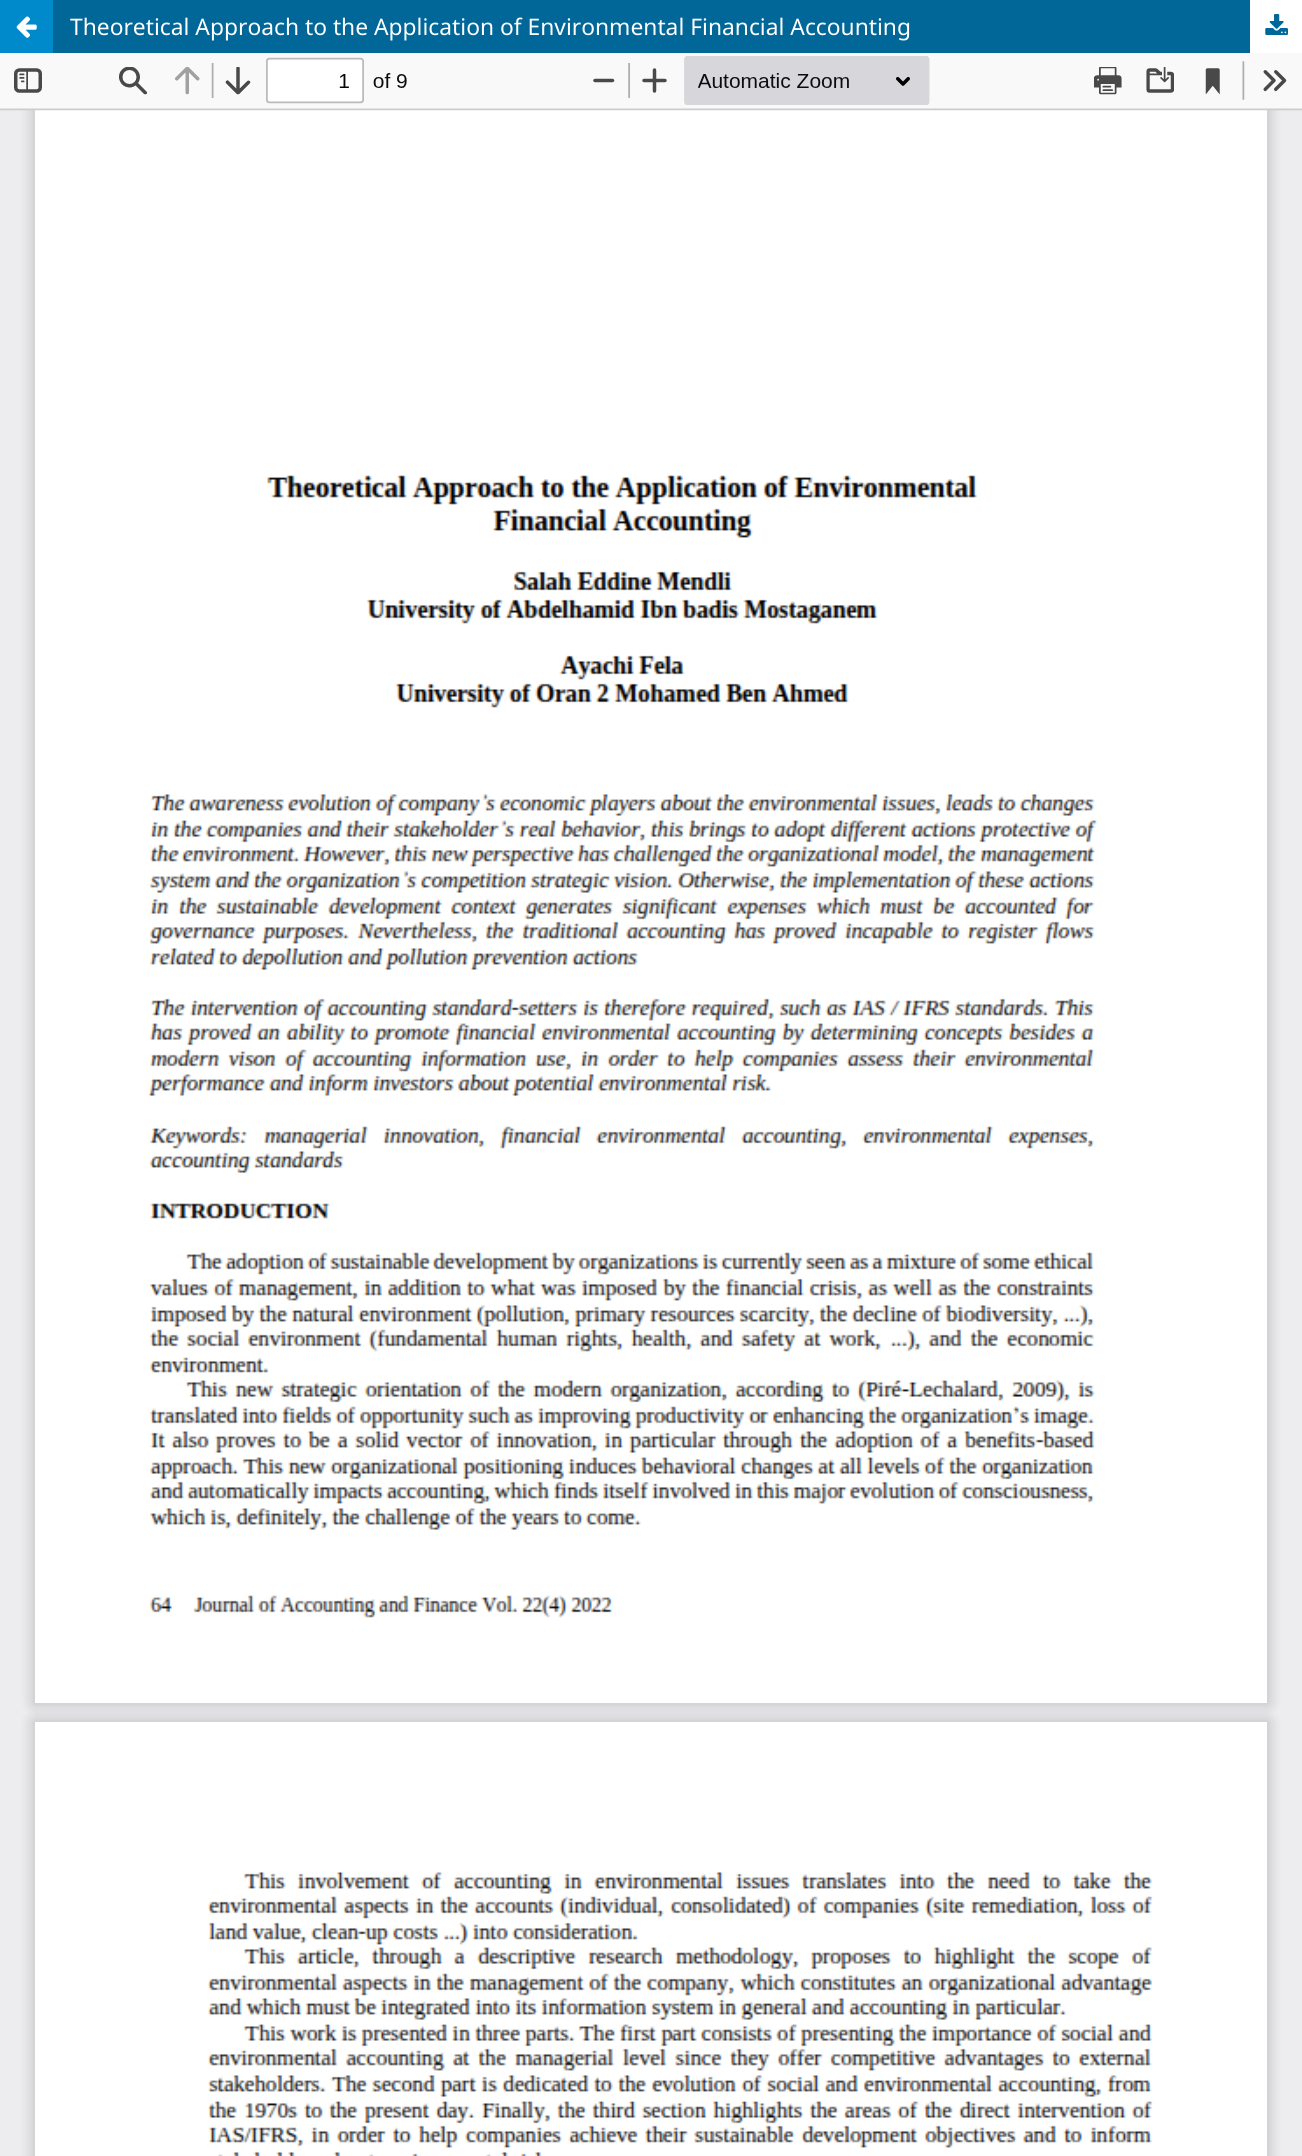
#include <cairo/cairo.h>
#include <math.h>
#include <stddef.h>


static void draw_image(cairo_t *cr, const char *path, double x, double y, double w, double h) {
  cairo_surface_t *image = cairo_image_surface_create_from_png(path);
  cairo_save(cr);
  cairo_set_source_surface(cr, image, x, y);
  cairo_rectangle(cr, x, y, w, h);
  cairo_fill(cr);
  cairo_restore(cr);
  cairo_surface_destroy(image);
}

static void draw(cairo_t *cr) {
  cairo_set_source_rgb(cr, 1, 1, 1);
  cairo_paint(cr);
  cairo_set_source_rgb(cr, 0, 103 / 255.0, 152 / 255.0);
  cairo_rectangle(cr, 53, 0, 1197, 53);
  cairo_fill(cr);
  cairo_set_source_rgb(cr, 0, 138 / 255.0, 203 / 255.0);
  cairo_rectangle(cr, 0, 0, 53, 53);
  cairo_fill(cr);
  draw_image(cr, "images/1.png", 16, 16, 21, 22);
  draw_image(cr, "images/2.png", 1265, 14, 23, 21);
  draw_image(cr, "images/3.png", 0, 53, 1302, 2103);
  cairo_select_font_face(cr, "Noto Sans", CAIRO_FONT_SLANT_NORMAL, CAIRO_FONT_WEIGHT_NORMAL);
  cairo_set_font_size(cr, 22.8);
  cairo_set_source_rgb(cr, 1, 1, 1);
  cairo_move_to(cr, 70, 35);
  cairo_show_text(cr, "Theoretical Approach to the Application of Environmental Financial Accounting");
}

int main(void) {
  cairo_surface_t *surface = cairo_image_surface_create(CAIRO_FORMAT_RGB24, 1302, 2156);
  cairo_t *cr = cairo_create(surface);
  cairo_font_options_t *options = cairo_font_options_create();
  cairo_font_options_set_hint_metrics(options, CAIRO_HINT_METRICS_OFF);
  cairo_font_options_set_hint_style(options, CAIRO_HINT_STYLE_NONE);
  cairo_set_font_options(cr, options);
  cairo_set_miter_limit(cr, 4);
  draw(cr);
  cairo_surface_write_to_png(surface, "out.png");
  cairo_font_options_destroy(options);
  cairo_destroy(cr);
  cairo_surface_destroy(surface);
  return 0;
}
